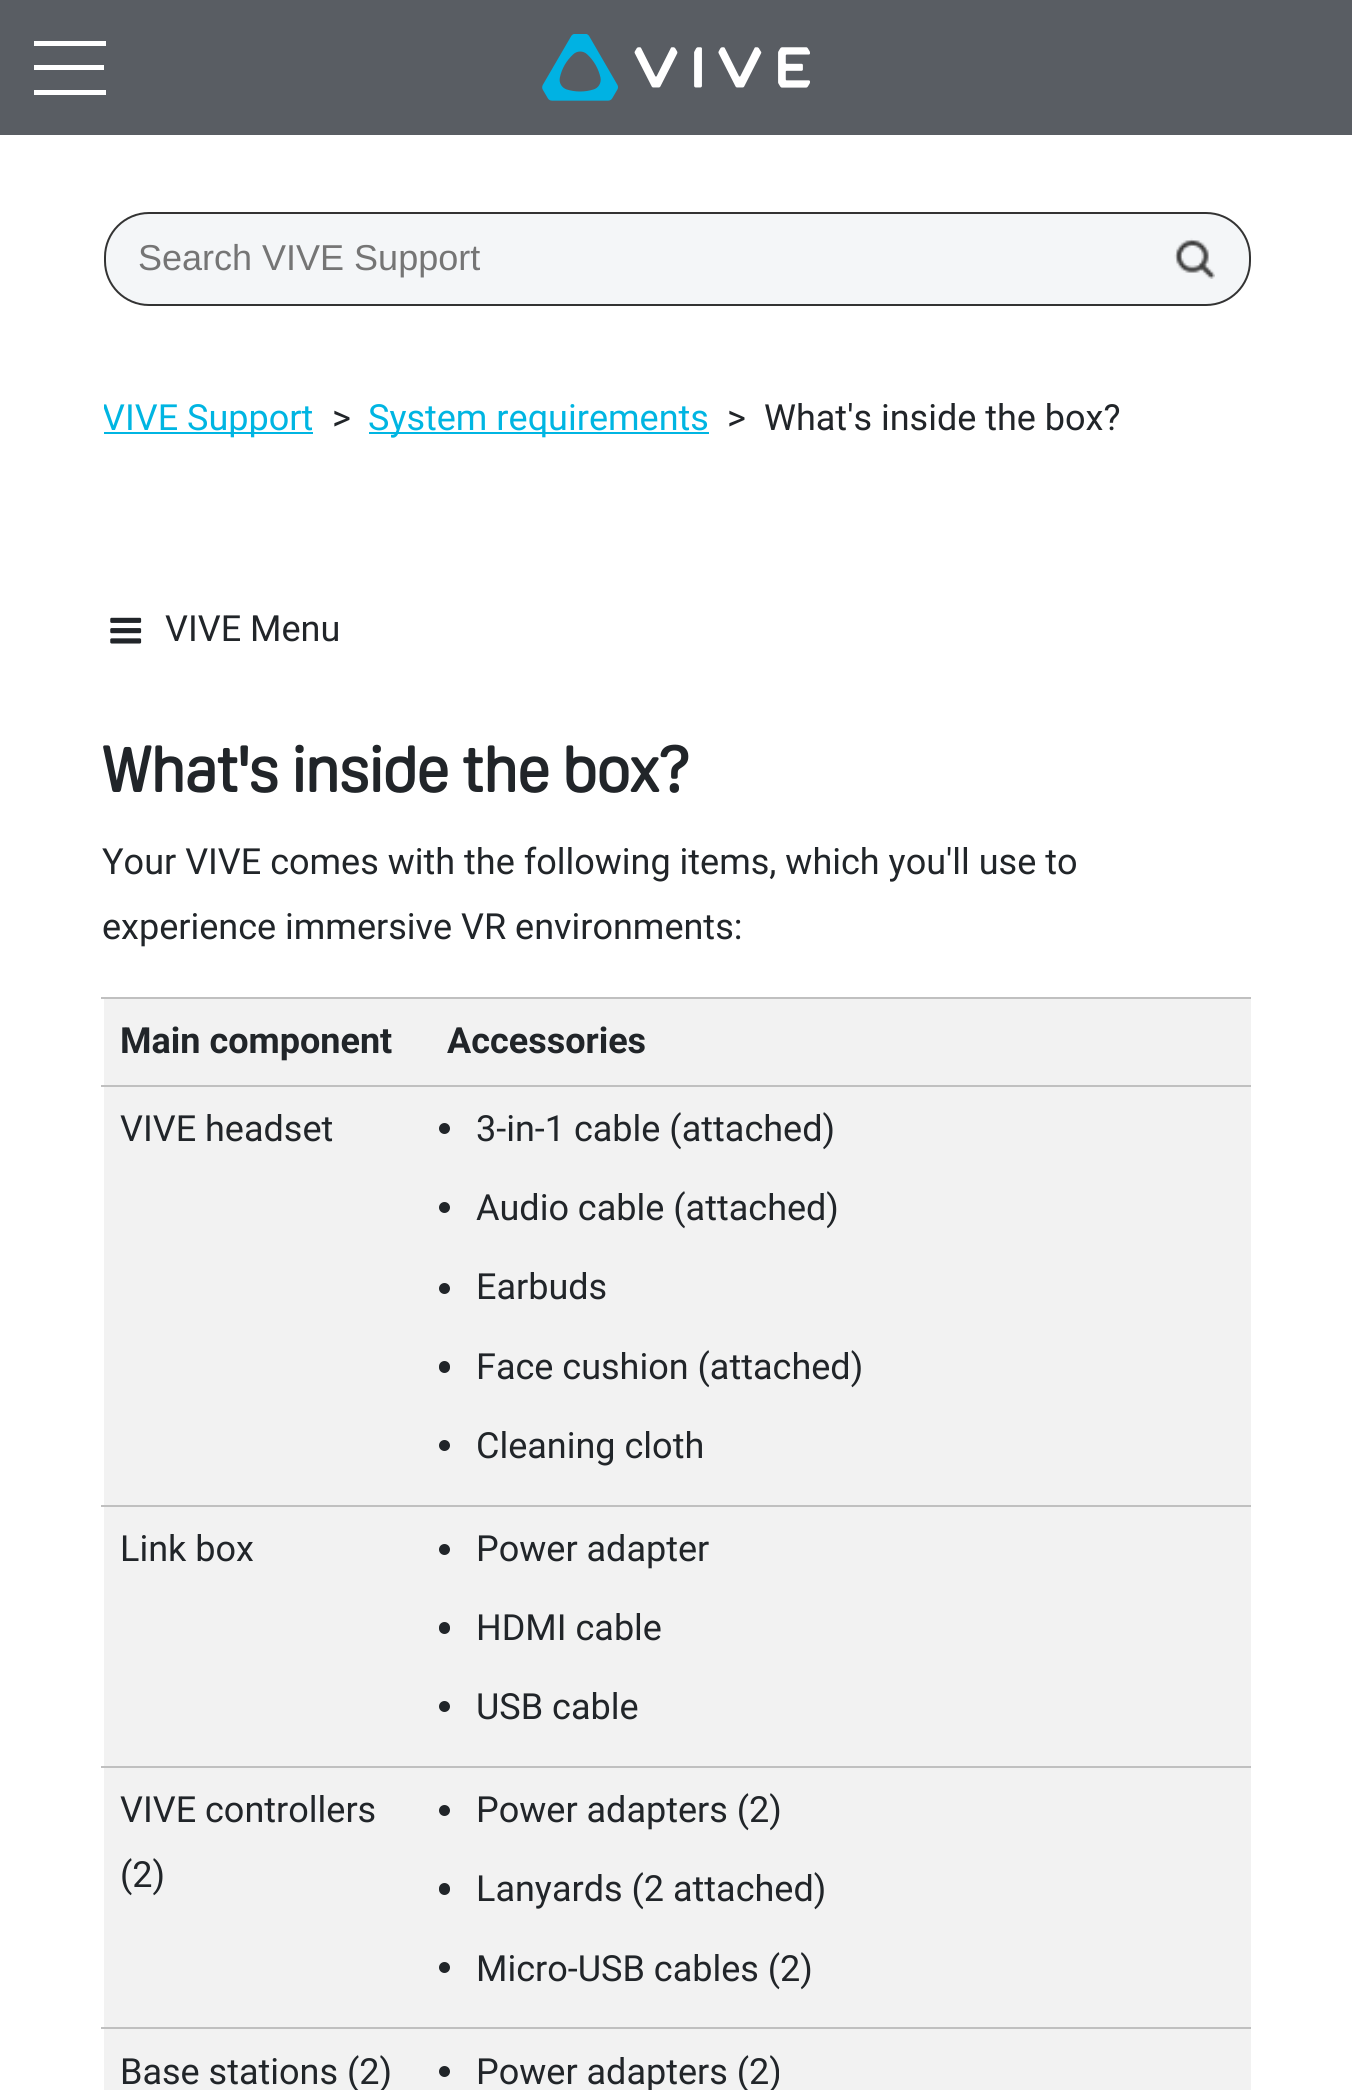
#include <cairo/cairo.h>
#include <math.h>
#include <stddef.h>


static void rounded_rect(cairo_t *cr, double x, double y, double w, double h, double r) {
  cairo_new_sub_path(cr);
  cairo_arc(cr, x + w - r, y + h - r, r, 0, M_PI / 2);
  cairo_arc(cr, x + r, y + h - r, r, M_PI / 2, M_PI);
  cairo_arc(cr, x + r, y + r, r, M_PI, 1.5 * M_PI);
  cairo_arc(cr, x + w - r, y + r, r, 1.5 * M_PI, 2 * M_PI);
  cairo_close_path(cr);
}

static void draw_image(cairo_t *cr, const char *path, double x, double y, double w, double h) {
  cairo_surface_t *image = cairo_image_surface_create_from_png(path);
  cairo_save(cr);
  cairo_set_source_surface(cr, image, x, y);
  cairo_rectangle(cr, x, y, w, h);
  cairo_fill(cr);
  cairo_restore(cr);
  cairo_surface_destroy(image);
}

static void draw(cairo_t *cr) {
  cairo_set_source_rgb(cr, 1, 1, 1);
  cairo_paint(cr);
  cairo_set_source_rgb(cr, 89 / 255.0, 93 / 255.0, 99 / 255.0);
  cairo_rectangle(cr, 0, 0, 1352, 135);
  cairo_fill(cr);
  cairo_set_source_rgb(cr, 1, 1, 1);
  cairo_rectangle(cr, 34, 65, 70, 5);
  cairo_fill(cr);
  cairo_rectangle(cr, 34, 41, 72, 5);
  cairo_fill(cr);
  cairo_rectangle(cr, 34, 90, 72, 5);
  cairo_fill(cr);
  draw_image(cr, "images/1.png", 542, 34, 268, 67);
  cairo_set_source_rgb(cr, 244 / 255.0, 246 / 255.0, 248 / 255.0);
  rounded_rect(cr, 105, 213, 1145, 92, 44);
  cairo_fill_preserve(cr);
  cairo_set_source_rgb(cr, 51 / 255.0, 51 / 255.0, 51 / 255.0);
  cairo_stroke(cr);
  draw_image(cr, "images/2.png", 1174, 238, 41, 41);
  cairo_set_source_rgb(cr, 0, 181 / 255.0, 226 / 255.0);
  cairo_rectangle(cr, 104, 432, 209, 2);
  cairo_fill(cr);
  cairo_rectangle(cr, 369, 432, 340, 2);
  cairo_fill(cr);
  draw_image(cr, "images/3.png", 110, 617, 32, 27);
  cairo_set_source_rgb(cr, 242 / 255.0, 242 / 255.0, 242 / 255.0);
  cairo_rectangle(cr, 104, 999, 1147, 86);
  cairo_fill(cr);
  cairo_set_source_rgb(cr, 192 / 255.0, 192 / 255.0, 192 / 255.0);
  cairo_rectangle(cr, 101, 997, 1150, 2);
  cairo_fill(cr);
  cairo_set_source_rgb(cr, 242 / 255.0, 242 / 255.0, 242 / 255.0);
  cairo_rectangle(cr, 104, 1087, 1147, 418);
  cairo_fill(cr);
  cairo_set_source_rgb(cr, 192 / 255.0, 192 / 255.0, 192 / 255.0);
  cairo_rectangle(cr, 101, 1085, 1150, 2);
  cairo_fill(cr);
  cairo_set_source_rgb(cr, 33 / 255.0, 37 / 255.0, 41 / 255.0);
  cairo_arc(cr, 444.5, 1128.5, 5.5, 0, 2 * M_PI);
  cairo_fill(cr);
  cairo_arc(cr, 444.5, 1207.5, 5.5, 0, 2 * M_PI);
  cairo_fill(cr);
  cairo_arc(cr, 444.5, 1288.5, 5.5, 0, 2 * M_PI);
  cairo_fill(cr);
  rounded_rect(cr, 439, 1361, 11, 12, 5.5);
  cairo_fill(cr);
  cairo_arc(cr, 444.5, 1445.5, 5.5, 0, 2 * M_PI);
  cairo_fill(cr);
  cairo_set_source_rgb(cr, 242 / 255.0, 242 / 255.0, 242 / 255.0);
  cairo_rectangle(cr, 104, 1507, 1147, 262);
  cairo_fill(cr);
  cairo_set_source_rgb(cr, 192 / 255.0, 192 / 255.0, 192 / 255.0);
  cairo_rectangle(cr, 101, 1505, 1150, 2);
  cairo_fill(cr);
  cairo_set_source_rgb(cr, 33 / 255.0, 37 / 255.0, 41 / 255.0);
  cairo_arc(cr, 444.5, 1549.5, 5.5, 0, 2 * M_PI);
  cairo_fill(cr);
  rounded_rect(cr, 439, 1622, 11, 12, 5.5);
  cairo_fill(cr);
  cairo_arc(cr, 444.5, 1706.5, 5.5, 0, 2 * M_PI);
  cairo_fill(cr);
  cairo_set_source_rgb(cr, 242 / 255.0, 242 / 255.0, 242 / 255.0);
  cairo_rectangle(cr, 104, 1769, 1147, 261);
  cairo_fill(cr);
  cairo_set_source_rgb(cr, 192 / 255.0, 192 / 255.0, 192 / 255.0);
  cairo_rectangle(cr, 101, 1766, 1150, 2);
  cairo_fill(cr);
  cairo_set_source_rgb(cr, 33 / 255.0, 37 / 255.0, 41 / 255.0);
  cairo_arc(cr, 444.5, 1810.5, 5.5, 0, 2 * M_PI);
  cairo_fill(cr);
  rounded_rect(cr, 439, 1883, 11, 12, 5.5);
  cairo_fill(cr);
  cairo_arc(cr, 444.5, 1967.5, 5.5, 0, 2 * M_PI);
  cairo_fill(cr);
  cairo_set_source_rgb(cr, 242 / 255.0, 242 / 255.0, 242 / 255.0);
  cairo_rectangle(cr, 104, 2030, 1147, 60);
  cairo_fill(cr);
  cairo_set_source_rgb(cr, 192 / 255.0, 192 / 255.0, 192 / 255.0);
  cairo_rectangle(cr, 101, 2027, 1150, 2);
  cairo_fill(cr);
  cairo_set_source_rgb(cr, 33 / 255.0, 37 / 255.0, 41 / 255.0);
  cairo_arc(cr, 444.5, 2071.5, 5.5, 0, 2 * M_PI);
  cairo_fill(cr);
  cairo_select_font_face(cr, "Liberation Sans", CAIRO_FONT_SLANT_NORMAL, CAIRO_FONT_WEIGHT_NORMAL);
  cairo_set_font_size(cr, 36);
  cairo_set_source_rgb(cr, 117 / 255.0, 117 / 255.0, 117 / 255.0);
  cairo_move_to(cr, 138, 270);
  cairo_show_text(cr, "Search VIVE Support");
  cairo_save(cr);
  cairo_rectangle(cr, 104, 392, 1147, 54);
  cairo_clip(cr);
  cairo_select_font_face(cr, "Roboto", CAIRO_FONT_SLANT_NORMAL, CAIRO_FONT_WEIGHT_NORMAL);
  cairo_set_source_rgb(cr, 0, 181 / 255.0, 226 / 255.0);
  cairo_move_to(cr, 102, 430);
  cairo_show_text(cr, "VIVE Support");
  cairo_restore(cr);
  cairo_select_font_face(cr, "Roboto", CAIRO_FONT_SLANT_NORMAL, CAIRO_FONT_WEIGHT_NORMAL);
  cairo_set_source_rgb(cr, 33 / 255.0, 37 / 255.0, 41 / 255.0);
  cairo_move_to(cr, 332, 430);
  cairo_show_text(cr, ">");
  cairo_set_source_rgb(cr, 0, 181 / 255.0, 226 / 255.0);
  cairo_move_to(cr, 368, 430);
  cairo_show_text(cr, "System requirements");
  cairo_set_source_rgb(cr, 33 / 255.0, 37 / 255.0, 41 / 255.0);
  cairo_move_to(cr, 727, 430);
  cairo_show_text(cr, ">");
  cairo_move_to(cr, 764, 430);
  cairo_show_text(cr, "What's inside the box?");
  cairo_move_to(cr, 165, 641);
  cairo_show_text(cr, "VIVE Menu");
  cairo_select_font_face(cr, "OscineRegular", CAIRO_FONT_SLANT_NORMAL, CAIRO_FONT_WEIGHT_BOLD);
  cairo_set_font_size(cr, 63);
  cairo_move_to(cr, 102, 792);
  cairo_show_text(cr, "What's inside the box?");
  cairo_select_font_face(cr, "Roboto", CAIRO_FONT_SLANT_NORMAL, CAIRO_FONT_WEIGHT_NORMAL);
  cairo_set_font_size(cr, 36);
  cairo_move_to(cr, 102, 874);
  cairo_show_text(cr, "Your VIVE comes with the following items, which you'll use to");
  cairo_move_to(cr, 102, 939);
  cairo_show_text(cr, "experience immersive VR environments:");
  cairo_select_font_face(cr, "Roboto", CAIRO_FONT_SLANT_NORMAL, CAIRO_FONT_WEIGHT_BOLD);
  cairo_move_to(cr, 120, 1053);
  cairo_show_text(cr, "Main component");
  cairo_move_to(cr, 447, 1053);
  cairo_show_text(cr, "Accessories");
  cairo_select_font_face(cr, "Roboto", CAIRO_FONT_SLANT_NORMAL, CAIRO_FONT_WEIGHT_NORMAL);
  cairo_move_to(cr, 120, 1141);
  cairo_show_text(cr, "VIVE headset");
  cairo_move_to(cr, 476, 1141);
  cairo_show_text(cr, "3-in-1 cable (attached)");
  cairo_move_to(cr, 476, 1220);
  cairo_show_text(cr, "Audio cable (attached)");
  cairo_move_to(cr, 476, 1299);
  cairo_show_text(cr, "Earbuds");
  cairo_move_to(cr, 476, 1379);
  cairo_show_text(cr, "Face cushion (attached)");
  cairo_move_to(cr, 476, 1458);
  cairo_show_text(cr, "Cleaning cloth");
  cairo_move_to(cr, 120, 1561);
  cairo_show_text(cr, "Link box");
  cairo_move_to(cr, 476, 1561);
  cairo_show_text(cr, "Power adapter");
  cairo_move_to(cr, 476, 1640);
  cairo_show_text(cr, "HDMI cable");
  cairo_move_to(cr, 476, 1719);
  cairo_show_text(cr, "USB cable");
  cairo_move_to(cr, 120, 1822);
  cairo_show_text(cr, "VIVE controllers");
  cairo_move_to(cr, 120, 1887);
  cairo_show_text(cr, "(2)");
  cairo_move_to(cr, 476, 1822);
  cairo_show_text(cr, "Power adapters (2)");
  cairo_move_to(cr, 476, 1901);
  cairo_show_text(cr, "Lanyards (2 attached)");
  cairo_move_to(cr, 476, 1981);
  cairo_show_text(cr, "Micro-USB cables (2)");
  cairo_move_to(cr, 120, 2084);
  cairo_show_text(cr, "Base stations (2)");
  cairo_move_to(cr, 476, 2084);
  cairo_show_text(cr, "Power adapters (2)");
}

int main(void) {
  cairo_surface_t *surface = cairo_image_surface_create(CAIRO_FORMAT_RGB24, 1352, 2090);
  cairo_t *cr = cairo_create(surface);
  cairo_font_options_t *options = cairo_font_options_create();
  cairo_font_options_set_hint_metrics(options, CAIRO_HINT_METRICS_OFF);
  cairo_font_options_set_hint_style(options, CAIRO_HINT_STYLE_NONE);
  cairo_set_font_options(cr, options);
  cairo_set_miter_limit(cr, 4);
  draw(cr);
  cairo_surface_write_to_png(surface, "out.png");
  cairo_font_options_destroy(options);
  cairo_destroy(cr);
  cairo_surface_destroy(surface);
  return 0;
}
